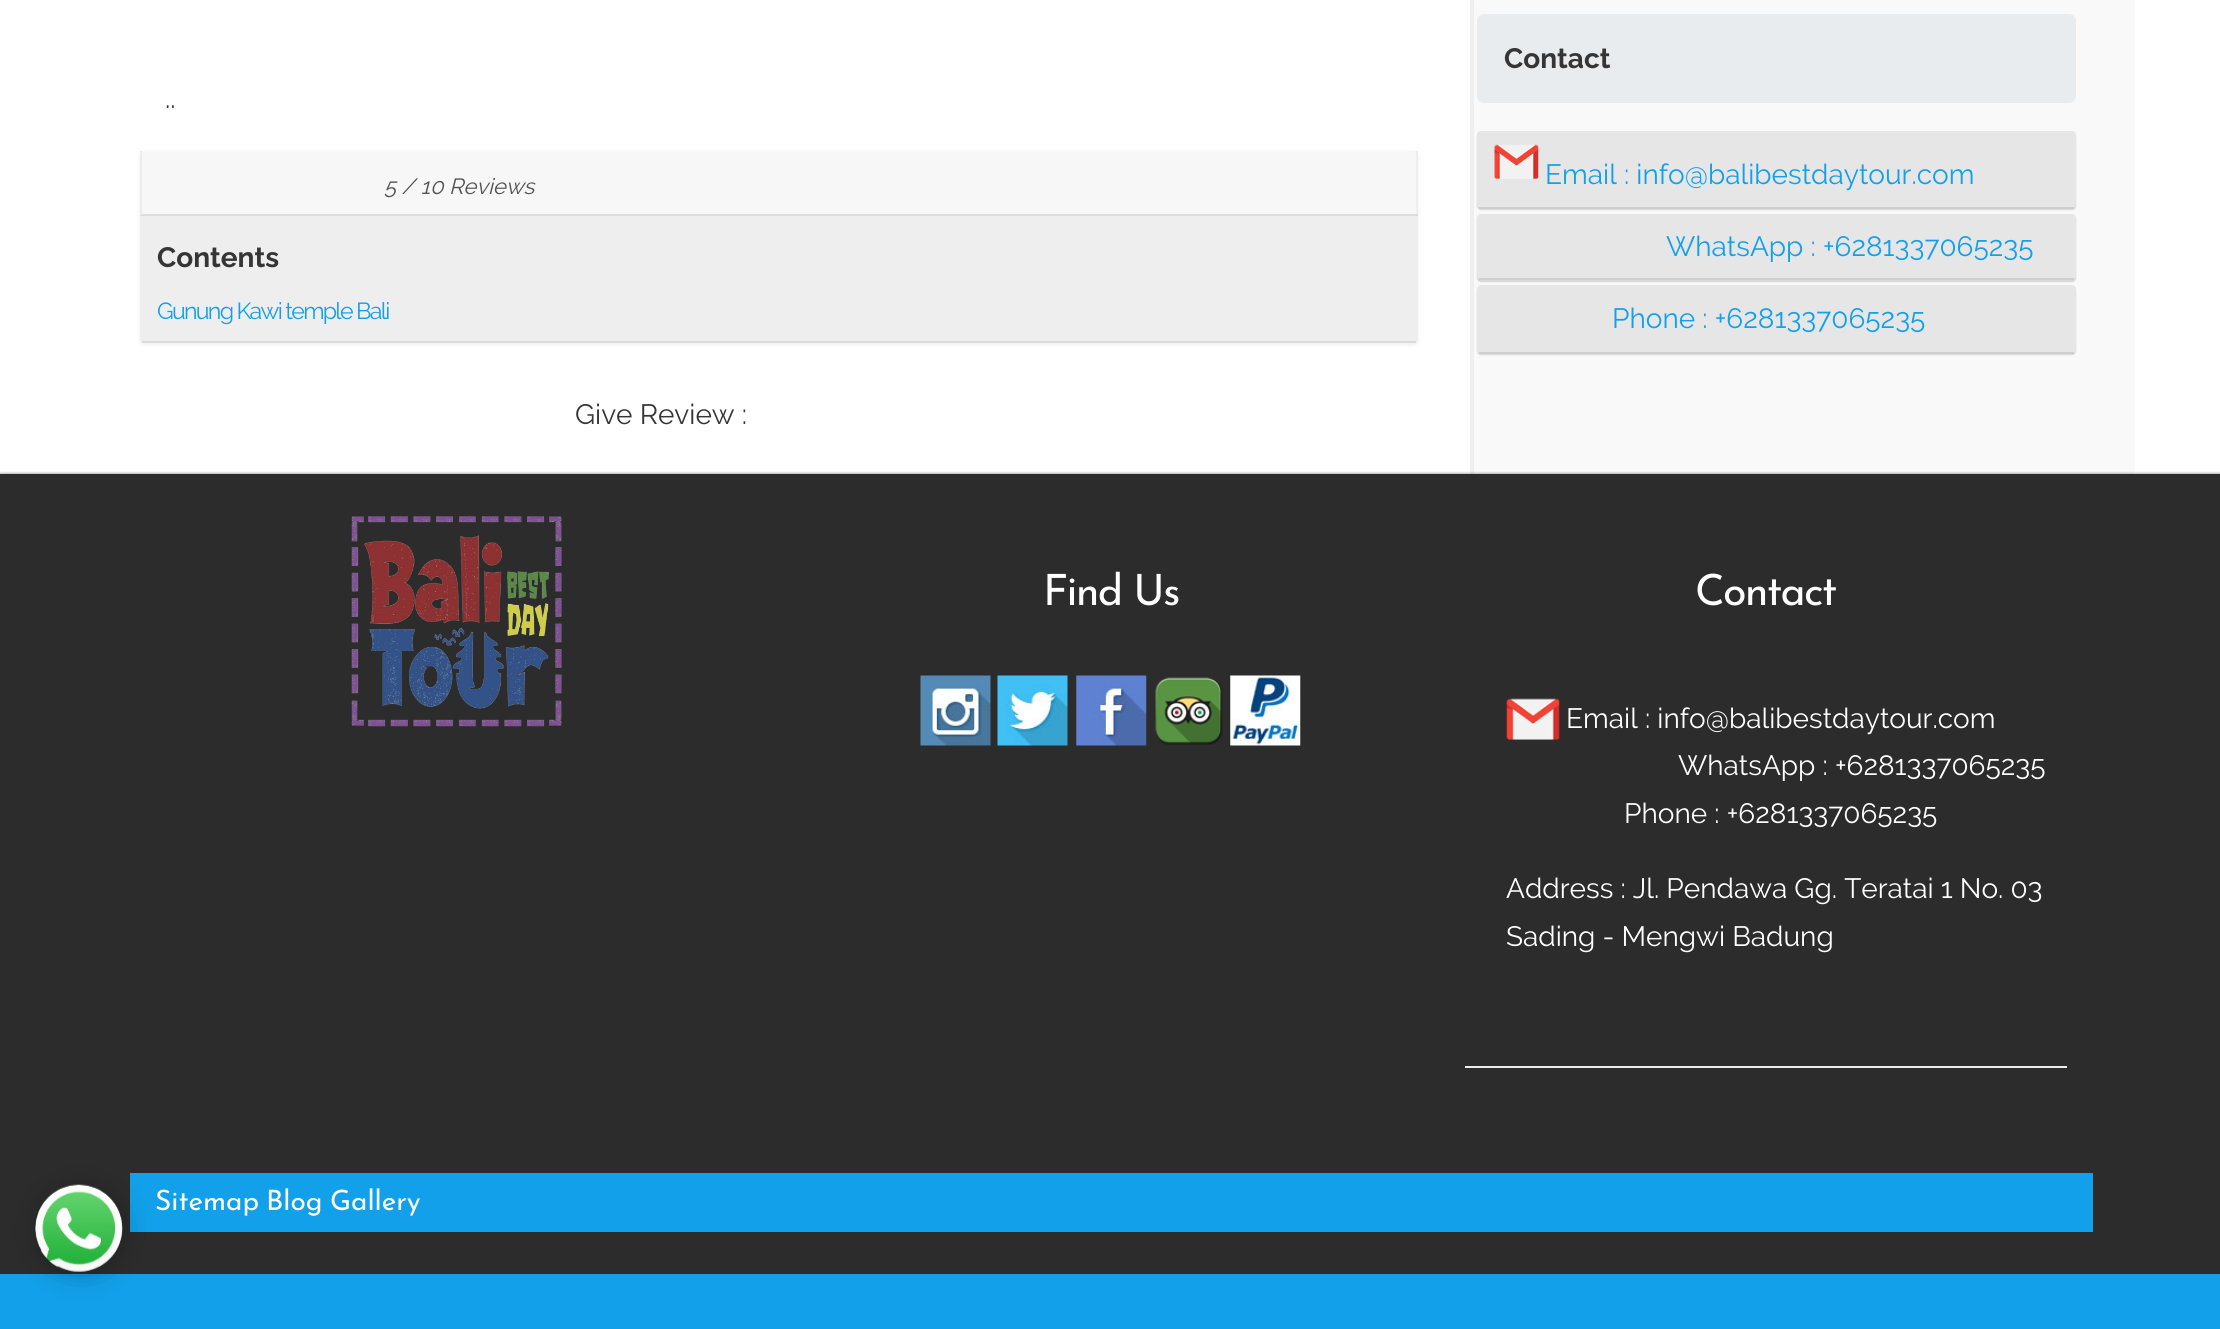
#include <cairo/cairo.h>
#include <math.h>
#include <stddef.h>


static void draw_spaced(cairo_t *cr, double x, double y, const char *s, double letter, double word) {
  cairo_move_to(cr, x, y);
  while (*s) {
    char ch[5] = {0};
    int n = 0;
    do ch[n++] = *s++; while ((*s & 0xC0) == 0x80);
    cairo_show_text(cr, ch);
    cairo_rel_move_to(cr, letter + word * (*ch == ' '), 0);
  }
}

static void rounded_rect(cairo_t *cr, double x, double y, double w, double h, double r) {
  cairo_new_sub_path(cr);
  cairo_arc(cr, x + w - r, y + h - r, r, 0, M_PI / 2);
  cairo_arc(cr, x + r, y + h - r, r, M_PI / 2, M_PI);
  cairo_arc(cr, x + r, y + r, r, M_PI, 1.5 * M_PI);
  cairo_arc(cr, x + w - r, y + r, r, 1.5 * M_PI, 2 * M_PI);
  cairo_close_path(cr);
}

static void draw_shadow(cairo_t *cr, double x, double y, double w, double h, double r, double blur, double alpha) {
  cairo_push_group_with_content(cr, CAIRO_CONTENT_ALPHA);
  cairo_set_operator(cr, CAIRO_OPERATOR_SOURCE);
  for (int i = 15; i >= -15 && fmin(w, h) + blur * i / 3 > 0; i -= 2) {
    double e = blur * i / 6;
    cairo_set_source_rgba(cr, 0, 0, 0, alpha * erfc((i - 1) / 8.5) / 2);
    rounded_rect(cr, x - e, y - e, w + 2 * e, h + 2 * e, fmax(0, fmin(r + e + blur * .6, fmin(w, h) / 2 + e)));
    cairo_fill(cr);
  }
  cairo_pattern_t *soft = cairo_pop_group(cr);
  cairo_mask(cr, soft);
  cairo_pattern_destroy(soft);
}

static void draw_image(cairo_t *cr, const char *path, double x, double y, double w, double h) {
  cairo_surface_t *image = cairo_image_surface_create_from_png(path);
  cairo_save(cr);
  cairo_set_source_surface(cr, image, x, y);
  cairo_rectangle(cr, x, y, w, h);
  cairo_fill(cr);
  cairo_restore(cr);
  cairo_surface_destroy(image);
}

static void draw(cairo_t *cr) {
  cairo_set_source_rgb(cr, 1, 1, 1);
  cairo_paint(cr);
  cairo_set_source_rgb(cr, 200 / 255.0, 200 / 255.0, 200 / 255.0);
  draw_shadow(cr, 140, 152, 1278, 193, 4, 2, 0.3);
  cairo_set_source_rgb(cr, 238 / 255.0, 238 / 255.0, 238 / 255.0);
  rounded_rect(cr, 140, 151, 1278, 192, 4);
  cairo_fill(cr);
  cairo_set_source_rgb(cr, 218 / 255.0, 218 / 255.0, 218 / 255.0);
  cairo_rectangle(cr, 142, 341, 1274, 2);
  cairo_fill(cr);
  cairo_set_source_rgb(cr, 247 / 255.0, 247 / 255.0, 247 / 255.0);
  cairo_rectangle(cr, 142, 151, 1274, 63);
  cairo_fill(cr);
  cairo_set_source_rgb(cr, 236 / 255.0, 236 / 255.0, 236 / 255.0);
  cairo_rectangle(cr, 1416, 151, 2, 3);
  cairo_fill(cr);
  cairo_set_source_rgb(cr, 220 / 255.0, 220 / 255.0, 220 / 255.0);
  cairo_rectangle(cr, 140, 214, 1278, 2);
  cairo_fill(cr);
  cairo_set_source_rgb(cr, 236 / 255.0, 236 / 255.0, 236 / 255.0);
  cairo_rectangle(cr, 140, 151, 2, 64);
  cairo_fill(cr);
  cairo_set_source_rgb(cr, 249 / 255.0, 249 / 255.0, 249 / 255.0);
  cairo_rectangle(cr, 1474, 0, 661, 474);
  cairo_fill(cr);
  cairo_set_source_rgb(cr, 239 / 255.0, 239 / 255.0, 239 / 255.0);
  cairo_rectangle(cr, 1470, 0, 4, 474);
  cairo_fill(cr);
  cairo_set_source_rgb(cr, 233 / 255.0, 236 / 255.0, 239 / 255.0);
  rounded_rect(cr, 1477, 14, 599, 89, 7);
  cairo_fill(cr);
  cairo_set_source_rgb(cr, 200 / 255.0, 200 / 255.0, 200 / 255.0);
  draw_shadow(cr, 1477, 133, 599, 77, 4, 0.5, 0.7);
  cairo_set_source_rgb(cr, 230 / 255.0, 230 / 255.0, 230 / 255.0);
  rounded_rect(cr, 1477, 131, 599, 77, 4);
  cairo_fill(cr);
  cairo_set_source_rgb(cr, 206 / 255.0, 206 / 255.0, 206 / 255.0);
  cairo_rectangle(cr, 1479, 207, 595, 2);
  cairo_fill(cr);
  draw_image(cr, "images/1.png", 1494, 144, 45, 35);
  cairo_set_source_rgb(cr, 200 / 255.0, 200 / 255.0, 200 / 255.0);
  draw_shadow(cr, 1477, 215, 599, 67, 4, 0.5, 0.7);
  cairo_set_source_rgb(cr, 230 / 255.0, 230 / 255.0, 230 / 255.0);
  rounded_rect(cr, 1477, 214, 599, 66, 4);
  cairo_fill(cr);
  cairo_set_source_rgb(cr, 206 / 255.0, 206 / 255.0, 206 / 255.0);
  cairo_rectangle(cr, 1479, 278, 595, 2);
  cairo_fill(cr);
  cairo_set_source_rgb(cr, 200 / 255.0, 200 / 255.0, 200 / 255.0);
  draw_shadow(cr, 1477, 287, 599, 68, 4, 0.5, 0.7);
  cairo_set_source_rgb(cr, 230 / 255.0, 230 / 255.0, 230 / 255.0);
  rounded_rect(cr, 1477, 285, 599, 69, 4);
  cairo_fill(cr);
  cairo_set_source_rgb(cr, 206 / 255.0, 206 / 255.0, 206 / 255.0);
  cairo_rectangle(cr, 1479, 352, 595, 2);
  cairo_fill(cr);
  cairo_set_source_rgb(cr, 0, 0, 0);
  draw_shadow(cr, 0, 473, 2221, 799, 0, 1, 0.3);
  cairo_set_source_rgb(cr, 44 / 255.0, 44 / 255.0, 44 / 255.0);
  cairo_rectangle(cr, 0, 474, 2220, 800);
  cairo_fill(cr);
  cairo_set_source_rgb(cr, 17 / 255.0, 160 / 255.0, 233 / 255.0);
  cairo_rectangle(cr, 130, 1173, 1963, 59);
  cairo_fill(cr);
  cairo_rectangle(cr, 0, 1274, 2220, 55);
  cairo_fill(cr);
  cairo_save(cr);
  cairo_set_fill_rule(cr, CAIRO_FILL_RULE_EVEN_ODD);
  cairo_new_path(cr);
  cairo_move_to(cr, 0, 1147);
  cairo_line_to(cr, 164, 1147);
  cairo_line_to(cr, 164, 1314);
  cairo_line_to(cr, 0, 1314);
  cairo_close_path(cr);
  cairo_move_to(cr, 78.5, 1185);
  cairo_line_to(cr, 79.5, 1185);
  cairo_curve_to(cr, 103.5, 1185, 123, 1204.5, 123, 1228.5);
  cairo_curve_to(cr, 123, 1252.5, 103.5, 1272, 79.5, 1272);
  cairo_line_to(cr, 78.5, 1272);
  cairo_curve_to(cr, 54.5, 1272, 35, 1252.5, 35, 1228.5);
  cairo_curve_to(cr, 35, 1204.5, 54.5, 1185, 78.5, 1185);
  cairo_close_path(cr);
  cairo_clip(cr);
  cairo_set_source_rgb(cr, 0, 0, 0);
  draw_shadow(cr, 40, 1190, 81, 81, 40.5, 14, 0.3);
  cairo_restore(cr);
  draw_image(cr, "images/2.png", 35, 1184, 88, 88);
  draw_image(cr, "images/3.png", 351, 516, 211, 211);
  draw_image(cr, "images/4.png", 920, 675, 71, 71);
  draw_image(cr, "images/5.png", 997, 675, 71, 71);
  draw_image(cr, "images/6.png", 1076, 675, 71, 71);
  draw_image(cr, "images/7.png", 1155, 677, 68, 68);
  draw_image(cr, "images/8.png", 1230, 675, 71, 71);
  draw_image(cr, "images/9.png", 1506, 698, 54, 42);
  cairo_set_source_rgb(cr, 236 / 255.0, 236 / 255.0, 238 / 255.0);
  cairo_rectangle(cr, 1465, 1066, 602, 2);
  cairo_fill(cr);
  cairo_select_font_face(cr, "Raleway", CAIRO_FONT_SLANT_NORMAL, CAIRO_FONT_WEIGHT_NORMAL);
  cairo_set_font_size(cr, 28);
  cairo_set_source_rgb(cr, 53 / 255.0, 53 / 255.0, 53 / 255.0);
  cairo_move_to(cr, 165, 108);
  cairo_show_text(cr, "..");
  cairo_select_font_face(cr, "Raleway", CAIRO_FONT_SLANT_ITALIC, CAIRO_FONT_WEIGHT_NORMAL);
  cairo_set_font_size(cr, 22);
  cairo_set_source_rgb(cr, 82 / 255.0, 82 / 255.0, 82 / 255.0);
  cairo_move_to(cr, 384, 194);
  cairo_show_text(cr, "5 / 10 Reviews");
  cairo_select_font_face(cr, "Raleway", CAIRO_FONT_SLANT_NORMAL, CAIRO_FONT_WEIGHT_BOLD);
  cairo_set_font_size(cr, 28);
  cairo_set_source_rgb(cr, 53 / 255.0, 53 / 255.0, 53 / 255.0);
  cairo_move_to(cr, 157, 267);
  cairo_show_text(cr, "Contents");
  cairo_select_font_face(cr, "Raleway", CAIRO_FONT_SLANT_NORMAL, CAIRO_FONT_WEIGHT_NORMAL);
  cairo_set_font_size(cr, 23.25);
  cairo_set_source_rgb(cr, 17 / 255.0, 160 / 255.0, 233 / 255.0);
  draw_spaced(cr, 157, 319, "Gunung Kawi temple Bali", -1.75, 0);
  cairo_set_font_size(cr, 28);
  cairo_set_source_rgb(cr, 53 / 255.0, 53 / 255.0, 53 / 255.0);
  cairo_move_to(cr, 575, 424);
  cairo_show_text(cr, "Give Review :");
  cairo_select_font_face(cr, "Raleway", CAIRO_FONT_SLANT_NORMAL, CAIRO_FONT_WEIGHT_BOLD);
  cairo_move_to(cr, 1504, 68);
  cairo_show_text(cr, "Contact");
  cairo_select_font_face(cr, "Raleway", CAIRO_FONT_SLANT_NORMAL, CAIRO_FONT_WEIGHT_NORMAL);
  cairo_set_source_rgb(cr, 17 / 255.0, 160 / 255.0, 233 / 255.0);
  cairo_move_to(cr, 1545, 184);
  cairo_show_text(cr, "Email : info@balibestdaytour.com");
  cairo_move_to(cr, 1666, 256);
  cairo_show_text(cr, "WhatsApp : +6281337065235");
  cairo_move_to(cr, 1612, 328);
  cairo_show_text(cr, "Phone : +6281337065235");
  cairo_select_font_face(cr, "Josefin Sans Thin", CAIRO_FONT_SLANT_NORMAL, CAIRO_FONT_WEIGHT_NORMAL);
  cairo_set_font_size(cr, 43);
  cairo_set_source_rgb(cr, 1, 1, 1);
  draw_spaced(cr, 1043, 605, "Find Us", -1.75, 0);
  draw_spaced(cr, 1695, 605, "Contact", -1.75, 0);
  cairo_select_font_face(cr, "Raleway", CAIRO_FONT_SLANT_NORMAL, CAIRO_FONT_WEIGHT_NORMAL);
  cairo_set_font_size(cr, 28);
  cairo_move_to(cr, 1566, 728);
  cairo_show_text(cr, "Email : info@balibestdaytour.com");
  cairo_move_to(cr, 1678, 775);
  cairo_show_text(cr, "WhatsApp : +6281337065235");
  cairo_move_to(cr, 1624, 823);
  cairo_show_text(cr, "Phone : +6281337065235");
  cairo_move_to(cr, 1506, 898);
  cairo_show_text(cr, "Address : Jl. Pendawa Gg. Teratai 1 No. 03");
  cairo_move_to(cr, 1506, 946);
  cairo_show_text(cr, "Sading - Mengwi Badung");
  cairo_select_font_face(cr, "Josefin Sans Thin", CAIRO_FONT_SLANT_NORMAL, CAIRO_FONT_WEIGHT_NORMAL);
  cairo_move_to(cr, 155, 1210);
  cairo_show_text(cr, "Sitemap");
  cairo_move_to(cr, 266, 1210);
  cairo_show_text(cr, "Blog");
  cairo_move_to(cr, 330, 1210);
  cairo_show_text(cr, "Gallery");
}

int main(void) {
  cairo_surface_t *surface = cairo_image_surface_create(CAIRO_FORMAT_RGB24, 2220, 1329);
  cairo_t *cr = cairo_create(surface);
  cairo_font_options_t *options = cairo_font_options_create();
  cairo_font_options_set_hint_metrics(options, CAIRO_HINT_METRICS_OFF);
  cairo_font_options_set_hint_style(options, CAIRO_HINT_STYLE_NONE);
  cairo_set_font_options(cr, options);
  cairo_set_miter_limit(cr, 4);
  draw(cr);
  cairo_surface_write_to_png(surface, "out.png");
  cairo_font_options_destroy(options);
  cairo_destroy(cr);
  cairo_surface_destroy(surface);
  return 0;
}
